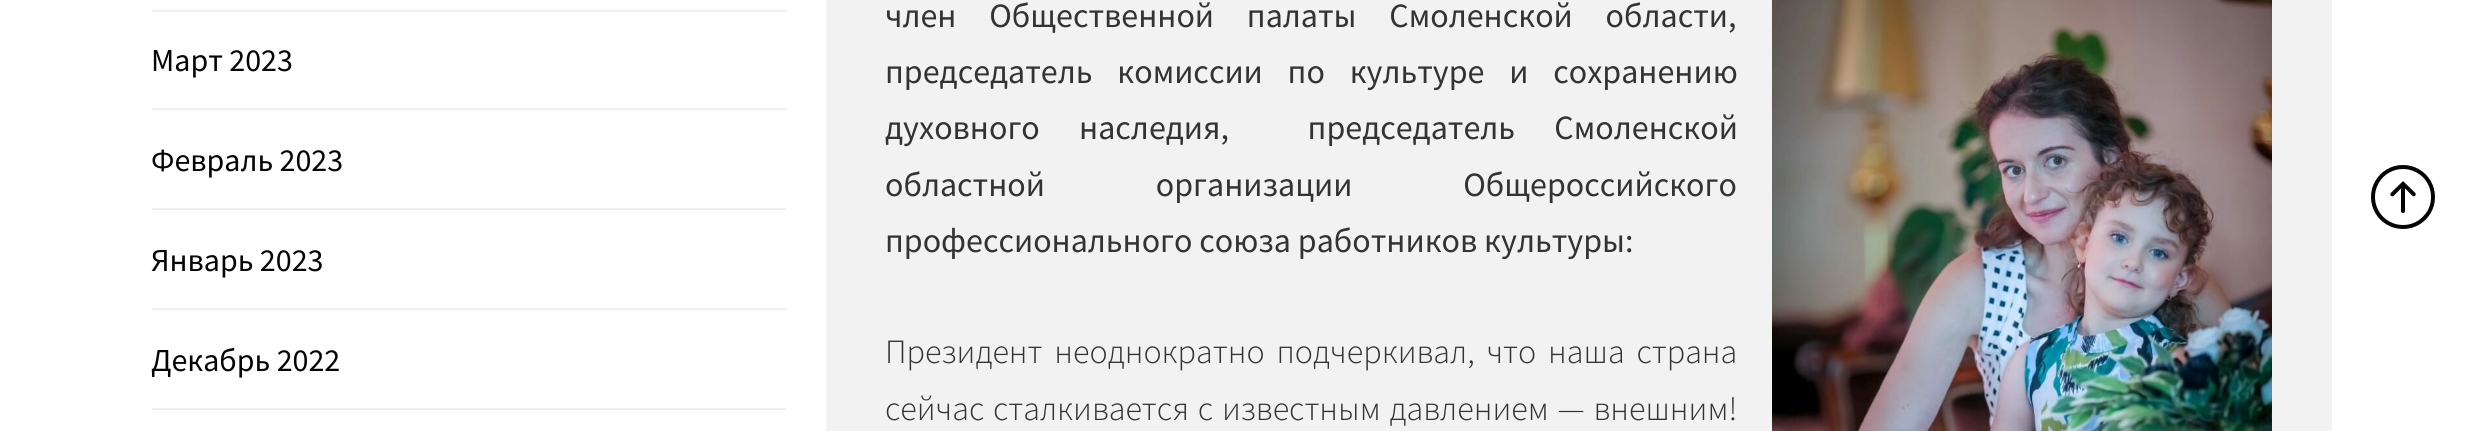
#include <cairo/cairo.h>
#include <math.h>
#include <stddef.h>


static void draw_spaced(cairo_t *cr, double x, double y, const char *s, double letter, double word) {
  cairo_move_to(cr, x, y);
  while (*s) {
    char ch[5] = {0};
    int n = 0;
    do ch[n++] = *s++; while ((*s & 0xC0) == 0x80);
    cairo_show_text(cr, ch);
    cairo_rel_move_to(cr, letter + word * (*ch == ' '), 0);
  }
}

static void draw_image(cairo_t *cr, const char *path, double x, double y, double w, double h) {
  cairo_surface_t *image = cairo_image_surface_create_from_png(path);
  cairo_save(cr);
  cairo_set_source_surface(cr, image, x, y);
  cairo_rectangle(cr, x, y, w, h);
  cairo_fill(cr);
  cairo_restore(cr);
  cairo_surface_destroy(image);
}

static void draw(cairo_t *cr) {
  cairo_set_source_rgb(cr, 1, 1, 1);
  cairo_paint(cr);
  cairo_set_source_rgb(cr, 238 / 255.0, 238 / 255.0, 238 / 255.0);
  cairo_rectangle(cr, 152, 10, 634, 2);
  cairo_fill(cr);
  cairo_rectangle(cr, 152, 108, 634, 2);
  cairo_fill(cr);
  cairo_rectangle(cr, 152, 208, 634, 2);
  cairo_fill(cr);
  cairo_rectangle(cr, 152, 308, 634, 2);
  cairo_fill(cr);
  cairo_rectangle(cr, 152, 408, 634, 2);
  cairo_fill(cr);
  cairo_set_source_rgb(cr, 242 / 255.0, 242 / 255.0, 242 / 255.0);
  cairo_rectangle(cr, 826, 0, 1506, 431);
  cairo_fill(cr);
  draw_image(cr, "images/1.png", 1772, 0, 500, 431);
  draw_image(cr, "images/2.png", 2371, 165, 64, 64);
  cairo_select_font_face(cr, "Source Sans Pro", CAIRO_FONT_SLANT_NORMAL, CAIRO_FONT_WEIGHT_NORMAL);
  cairo_set_font_size(cr, 32);
  cairo_set_source_rgb(cr, 4 / 255.0, 4 / 255.0, 4 / 255.0);
  cairo_move_to(cr, 151, 71);
  cairo_show_text(cr, "Март 2023");
  cairo_move_to(cr, 151, 171);
  cairo_show_text(cr, "Февраль 2023");
  cairo_move_to(cr, 151, 271);
  cairo_show_text(cr, "Январь 2023");
  cairo_move_to(cr, 151, 371);
  cairo_show_text(cr, "Декабрь 2022");
  cairo_set_font_size(cr, 34);
  cairo_set_source_rgb(cr, 51 / 255.0, 51 / 255.0, 51 / 255.0);
  draw_spaced(cr, 885, 27, "член Общественной палаты Смоленской области,", 0, 26);
  draw_spaced(cr, 885, 83, "председатель комиссии по культуре и сохранению", 0, 18);
  draw_spaced(cr, 885, 139, "духовного наследия,  председатель Смоленской", 0, 32.5);
  draw_spaced(cr, 885, 196, "областной организации Общероссийского", 0, 104);
  cairo_move_to(cr, 885, 252);
  cairo_show_text(cr, "профессионального союза работников культуры:");
  cairo_select_font_face(cr, "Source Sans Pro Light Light", CAIRO_FONT_SLANT_NORMAL, CAIRO_FONT_WEIGHT_NORMAL);
  draw_spaced(cr, 885, 363, "Президент неоднократно подчеркивал, что наша страна", 0, 5);
  draw_spaced(cr, 885, 420, "сейчас сталкивается с известным давлением — внешним!", 0, 2);
}

int main(void) {
  cairo_surface_t *surface = cairo_image_surface_create(CAIRO_FORMAT_RGB24, 2481, 431);
  cairo_t *cr = cairo_create(surface);
  cairo_font_options_t *options = cairo_font_options_create();
  cairo_font_options_set_hint_metrics(options, CAIRO_HINT_METRICS_OFF);
  cairo_font_options_set_hint_style(options, CAIRO_HINT_STYLE_NONE);
  cairo_set_font_options(cr, options);
  cairo_set_miter_limit(cr, 4);
  draw(cr);
  cairo_surface_write_to_png(surface, "out.png");
  cairo_font_options_destroy(options);
  cairo_destroy(cr);
  cairo_surface_destroy(surface);
  return 0;
}
